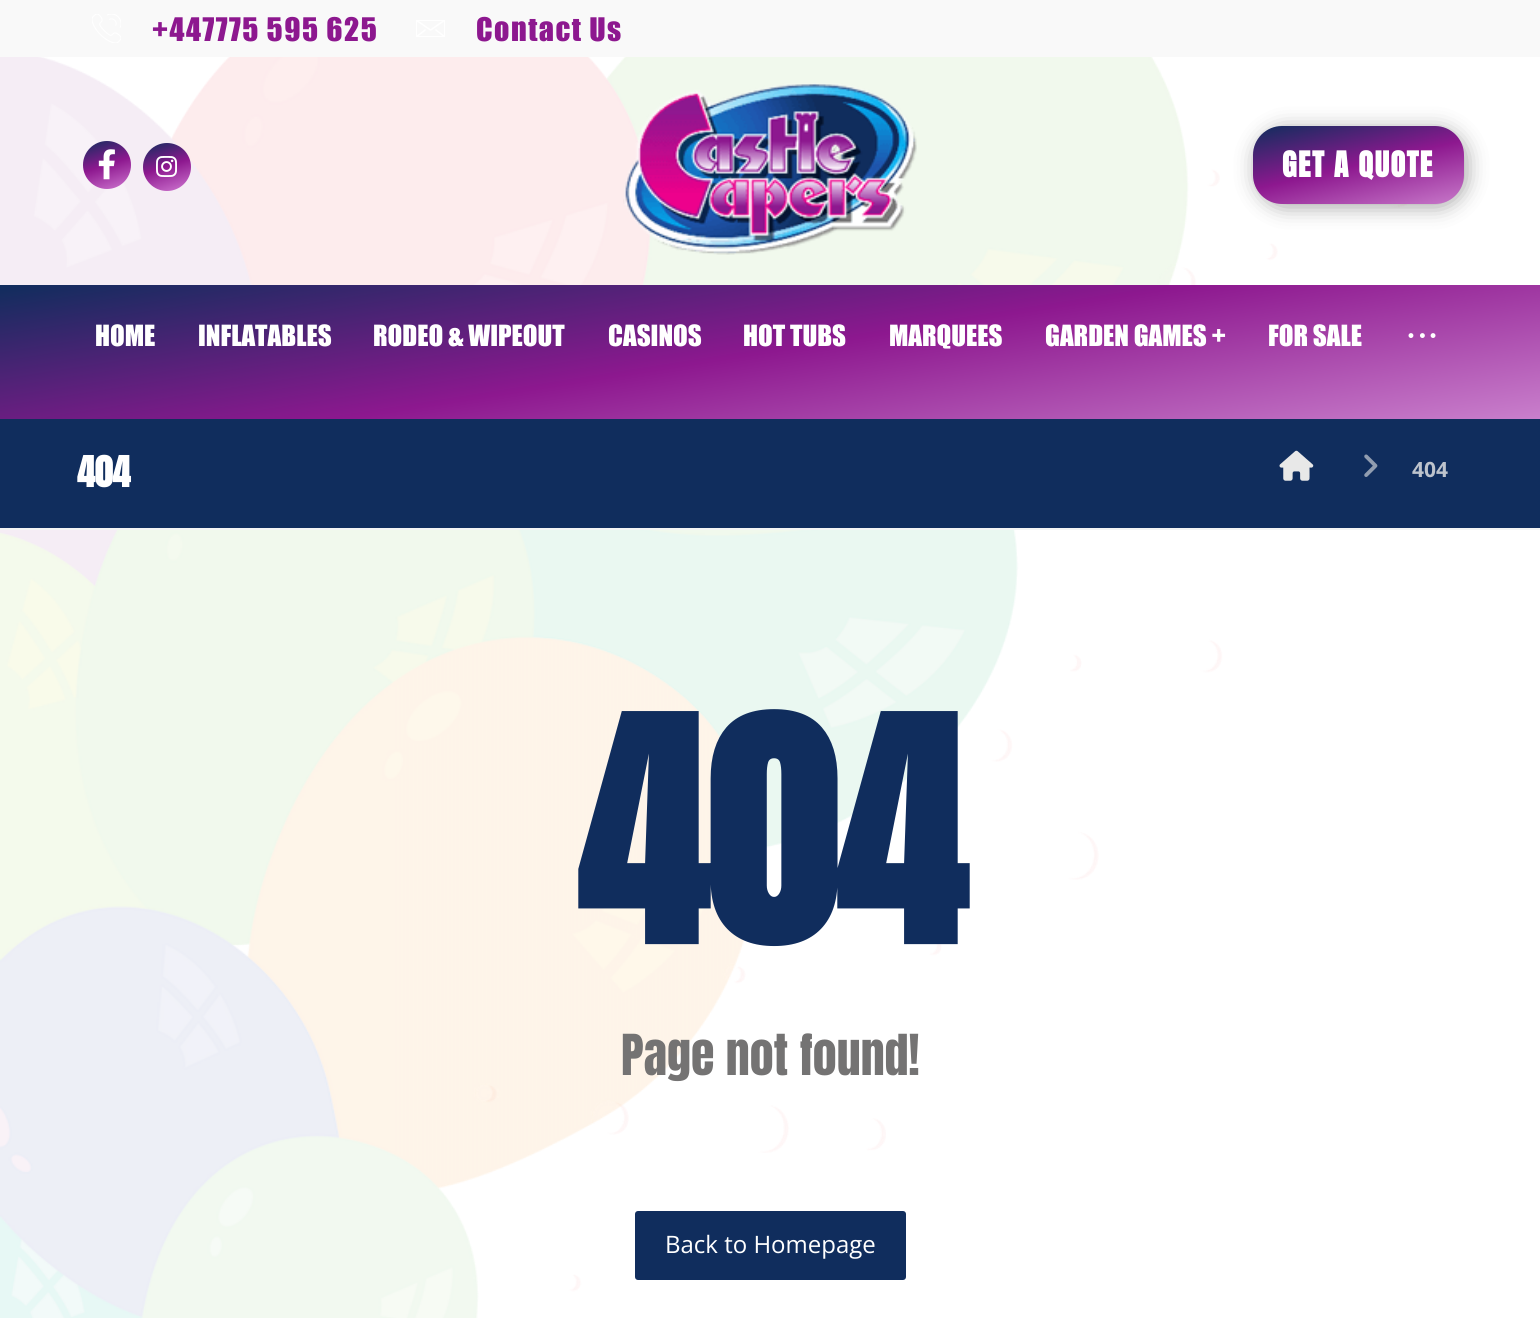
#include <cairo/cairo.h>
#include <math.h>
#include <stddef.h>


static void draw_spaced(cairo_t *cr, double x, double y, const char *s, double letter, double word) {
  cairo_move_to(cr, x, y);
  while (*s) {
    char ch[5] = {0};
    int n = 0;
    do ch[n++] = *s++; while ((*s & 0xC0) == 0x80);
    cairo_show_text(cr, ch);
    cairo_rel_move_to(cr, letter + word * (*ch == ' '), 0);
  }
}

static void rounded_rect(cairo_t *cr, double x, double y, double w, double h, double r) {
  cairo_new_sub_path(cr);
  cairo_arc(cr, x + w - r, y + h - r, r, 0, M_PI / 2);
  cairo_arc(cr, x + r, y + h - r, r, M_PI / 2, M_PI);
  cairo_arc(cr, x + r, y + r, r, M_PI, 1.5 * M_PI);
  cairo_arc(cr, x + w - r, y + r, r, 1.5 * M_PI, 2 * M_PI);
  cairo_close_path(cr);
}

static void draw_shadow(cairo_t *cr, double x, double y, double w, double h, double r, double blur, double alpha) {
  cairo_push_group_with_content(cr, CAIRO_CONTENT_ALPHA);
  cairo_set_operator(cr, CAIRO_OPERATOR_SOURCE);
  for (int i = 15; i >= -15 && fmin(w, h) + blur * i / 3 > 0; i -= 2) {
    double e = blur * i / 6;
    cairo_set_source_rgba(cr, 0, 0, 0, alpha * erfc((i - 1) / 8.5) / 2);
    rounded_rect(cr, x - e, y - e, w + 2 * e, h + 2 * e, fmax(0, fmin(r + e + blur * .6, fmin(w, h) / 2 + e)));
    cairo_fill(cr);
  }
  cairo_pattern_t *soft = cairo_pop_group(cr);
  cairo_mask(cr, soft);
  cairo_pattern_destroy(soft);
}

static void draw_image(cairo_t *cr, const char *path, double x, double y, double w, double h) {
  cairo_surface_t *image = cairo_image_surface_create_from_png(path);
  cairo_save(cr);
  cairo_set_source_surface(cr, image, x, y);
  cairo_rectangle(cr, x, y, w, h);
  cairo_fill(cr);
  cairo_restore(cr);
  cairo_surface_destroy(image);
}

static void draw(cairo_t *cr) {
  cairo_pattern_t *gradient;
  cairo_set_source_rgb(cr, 1, 1, 1);
  cairo_paint(cr);
  draw_image(cr, "images/1.png", 0, 57, 1407, 1261);
  cairo_set_source_rgb(cr, 249 / 255.0, 249 / 255.0, 249 / 255.0);
  cairo_rectangle(cr, 0, 0, 1540, 57);
  cairo_fill(cr);
  draw_image(cr, "images/2.png", 92, 14, 29, 29);
  draw_image(cr, "images/3.png", 416, 20, 29, 17);
  gradient = cairo_pattern_create_linear(97, 136, 116, 194);
  cairo_pattern_add_color_stop_rgba(gradient, 0, 16 / 255.0, 45 / 255.0, 93 / 255.0, 1);
  cairo_pattern_add_color_stop_rgba(gradient, 0.5, 141 / 255.0, 24 / 255.0, 143 / 255.0, 1);
  cairo_pattern_add_color_stop_rgba(gradient, 1, 206 / 255.0, 118 / 255.0, 208 / 255.0, 1);
  cairo_set_source(cr, gradient);
  cairo_pattern_destroy(gradient);
  cairo_arc(cr, 107, 165, 24, 0, 2 * M_PI);
  cairo_fill(cr);
  draw_image(cr, "images/4.png", 98, 149, 17, 31);
  gradient = cairo_pattern_create_linear(157, 138, 176, 195);
  cairo_pattern_add_color_stop_rgba(gradient, 0, 16 / 255.0, 45 / 255.0, 93 / 255.0, 1);
  cairo_pattern_add_color_stop_rgba(gradient, 0.5, 141 / 255.0, 24 / 255.0, 143 / 255.0, 1);
  cairo_pattern_add_color_stop_rgba(gradient, 1, 206 / 255.0, 118 / 255.0, 208 / 255.0, 1);
  cairo_set_source(cr, gradient);
  cairo_pattern_destroy(gradient);
  cairo_arc(cr, 167, 167, 24, 0, 2 * M_PI);
  cairo_fill(cr);
  draw_image(cr, "images/5.png", 156, 156, 21, 21);
  draw_image(cr, "images/6.png", 623, 83, 294, 172);
  cairo_set_source_rgb(cr, 12 / 255.0, 12 / 255.0, 12 / 255.0);
  draw_shadow(cr, 1256, 129, 211, 78, 29, 10.5, 0.37);
  gradient = cairo_pattern_create_linear(1344, 105, 1372, 225);
  cairo_pattern_add_color_stop_rgba(gradient, 0, 16 / 255.0, 45 / 255.0, 93 / 255.0, 1);
  cairo_pattern_add_color_stop_rgba(gradient, 0.5, 141 / 255.0, 24 / 255.0, 143 / 255.0, 1);
  cairo_pattern_add_color_stop_rgba(gradient, 1, 199 / 255.0, 120 / 255.0, 201 / 255.0, 1);
  cairo_set_source(cr, gradient);
  cairo_pattern_destroy(gradient);
  rounded_rect(cr, 1253, 126, 211, 78, 29);
  cairo_fill(cr);
  gradient = cairo_pattern_create_linear(741, 168, 799, 536);
  cairo_pattern_add_color_stop_rgba(gradient, 0, 16 / 255.0, 45 / 255.0, 93 / 255.0, 1);
  cairo_pattern_add_color_stop_rgba(gradient, 0.5, 141 / 255.0, 24 / 255.0, 143 / 255.0, 1);
  cairo_pattern_add_color_stop_rgba(gradient, 1, 201 / 255.0, 127 / 255.0, 204 / 255.0, 1);
  cairo_set_source(cr, gradient);
  cairo_pattern_destroy(gradient);
  cairo_rectangle(cr, 0, 285, 1540, 134);
  cairo_fill(cr);
  draw_image(cr, "images/7.png", 1408, 333, 28, 5);
  cairo_set_source_rgb(cr, 16 / 255.0, 45 / 255.0, 93 / 255.0);
  cairo_rectangle(cr, 0, 419, 1540, 109);
  cairo_fill(cr);
  cairo_set_source_rgb(cr, 244 / 255.0, 244 / 255.0, 244 / 255.0);
  cairo_rectangle(cr, 0, 528, 1540, 2);
  cairo_fill(cr);
  draw_image(cr, "images/8.png", 1279, 450, 35, 31);
  draw_image(cr, "images/9.png", 1364, 454, 14, 23);
  cairo_set_source_rgb(cr, 16 / 255.0, 45 / 255.0, 93 / 255.0);
  rounded_rect(cr, 635, 1211, 271, 69, 3);
  cairo_fill(cr);
  cairo_select_font_face(cr, "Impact", CAIRO_FONT_SLANT_NORMAL, CAIRO_FONT_WEIGHT_NORMAL);
  cairo_set_font_size(cr, 30);
  cairo_set_source_rgb(cr, 141 / 255.0, 24 / 255.0, 143 / 255.0);
  draw_spaced(cr, 152, 41, "+447775 595 625", 1.5, 0);
  draw_spaced(cr, 476, 41, "Contact Us", 1.5, 0);
  cairo_select_font_face(cr, "Anton", CAIRO_FONT_SLANT_NORMAL, CAIRO_FONT_WEIGHT_BOLD);
  cairo_set_source_rgb(cr, 1, 1, 1);
  draw_spaced(cr, 1282, 177, "GET A QUOTE", 1.5, 0);
  cairo_select_font_face(cr, "Impact", CAIRO_FONT_SLANT_NORMAL, CAIRO_FONT_WEIGHT_NORMAL);
  cairo_set_font_size(cr, 27);
  cairo_move_to(cr, 95, 346);
  cairo_show_text(cr, "HOME");
  cairo_move_to(cr, 198, 346);
  cairo_show_text(cr, "INFLATABLES");
  cairo_move_to(cr, 373, 346);
  cairo_show_text(cr, "RODEO & WIPEOUT");
  cairo_move_to(cr, 608, 346);
  cairo_show_text(cr, "CASINOS");
  cairo_move_to(cr, 743, 346);
  cairo_show_text(cr, "HOT TUBS");
  cairo_move_to(cr, 889, 346);
  cairo_show_text(cr, "MARQUEES");
  cairo_move_to(cr, 1045, 346);
  cairo_show_text(cr, "GARDEN GAMES +");
  cairo_move_to(cr, 1268, 346);
  cairo_show_text(cr, "FOR SALE");
  cairo_select_font_face(cr, "Anton", CAIRO_FONT_SLANT_NORMAL, CAIRO_FONT_WEIGHT_BOLD);
  cairo_set_font_size(cr, 36);
  cairo_move_to(cr, 77, 487);
  cairo_show_text(cr, "404");
  cairo_select_font_face(cr, "Open Sans", CAIRO_FONT_SLANT_NORMAL, CAIRO_FONT_WEIGHT_BOLD);
  cairo_set_font_size(cr, 21);
  cairo_set_source_rgb(cr, 189 / 255.0, 195 / 255.0, 204 / 255.0);
  cairo_move_to(cr, 1412, 477);
  cairo_show_text(cr, "404");
  cairo_select_font_face(cr, "Anton", CAIRO_FONT_SLANT_NORMAL, CAIRO_FONT_WEIGHT_BOLD);
  cairo_set_font_size(cr, 262);
  cairo_set_source_rgb(cr, 16 / 255.0, 45 / 255.0, 93 / 255.0);
  cairo_move_to(cr, 576, 944);
  cairo_show_text(cr, "404");
  cairo_select_font_face(cr, "Anton", CAIRO_FONT_SLANT_NORMAL, CAIRO_FONT_WEIGHT_NORMAL);
  cairo_set_font_size(cr, 48);
  cairo_set_source_rgb(cr, 116 / 255.0, 115 / 255.0, 115 / 255.0);
  cairo_move_to(cr, 621, 1075);
  cairo_show_text(cr, "Page not found!");
  cairo_select_font_face(cr, "Open Sans", CAIRO_FONT_SLANT_NORMAL, CAIRO_FONT_WEIGHT_NORMAL);
  cairo_set_font_size(cr, 24);
  cairo_set_source_rgb(cr, 1, 1, 1);
  cairo_move_to(cr, 665, 1253);
  cairo_show_text(cr, "Back to Homepage");
}

int main(void) {
  cairo_surface_t *surface = cairo_image_surface_create(CAIRO_FORMAT_RGB24, 1540, 1318);
  cairo_t *cr = cairo_create(surface);
  cairo_font_options_t *options = cairo_font_options_create();
  cairo_font_options_set_hint_metrics(options, CAIRO_HINT_METRICS_OFF);
  cairo_font_options_set_hint_style(options, CAIRO_HINT_STYLE_NONE);
  cairo_set_font_options(cr, options);
  cairo_set_miter_limit(cr, 4);
  draw(cr);
  cairo_surface_write_to_png(surface, "out.png");
  cairo_font_options_destroy(options);
  cairo_destroy(cr);
  cairo_surface_destroy(surface);
  return 0;
}
